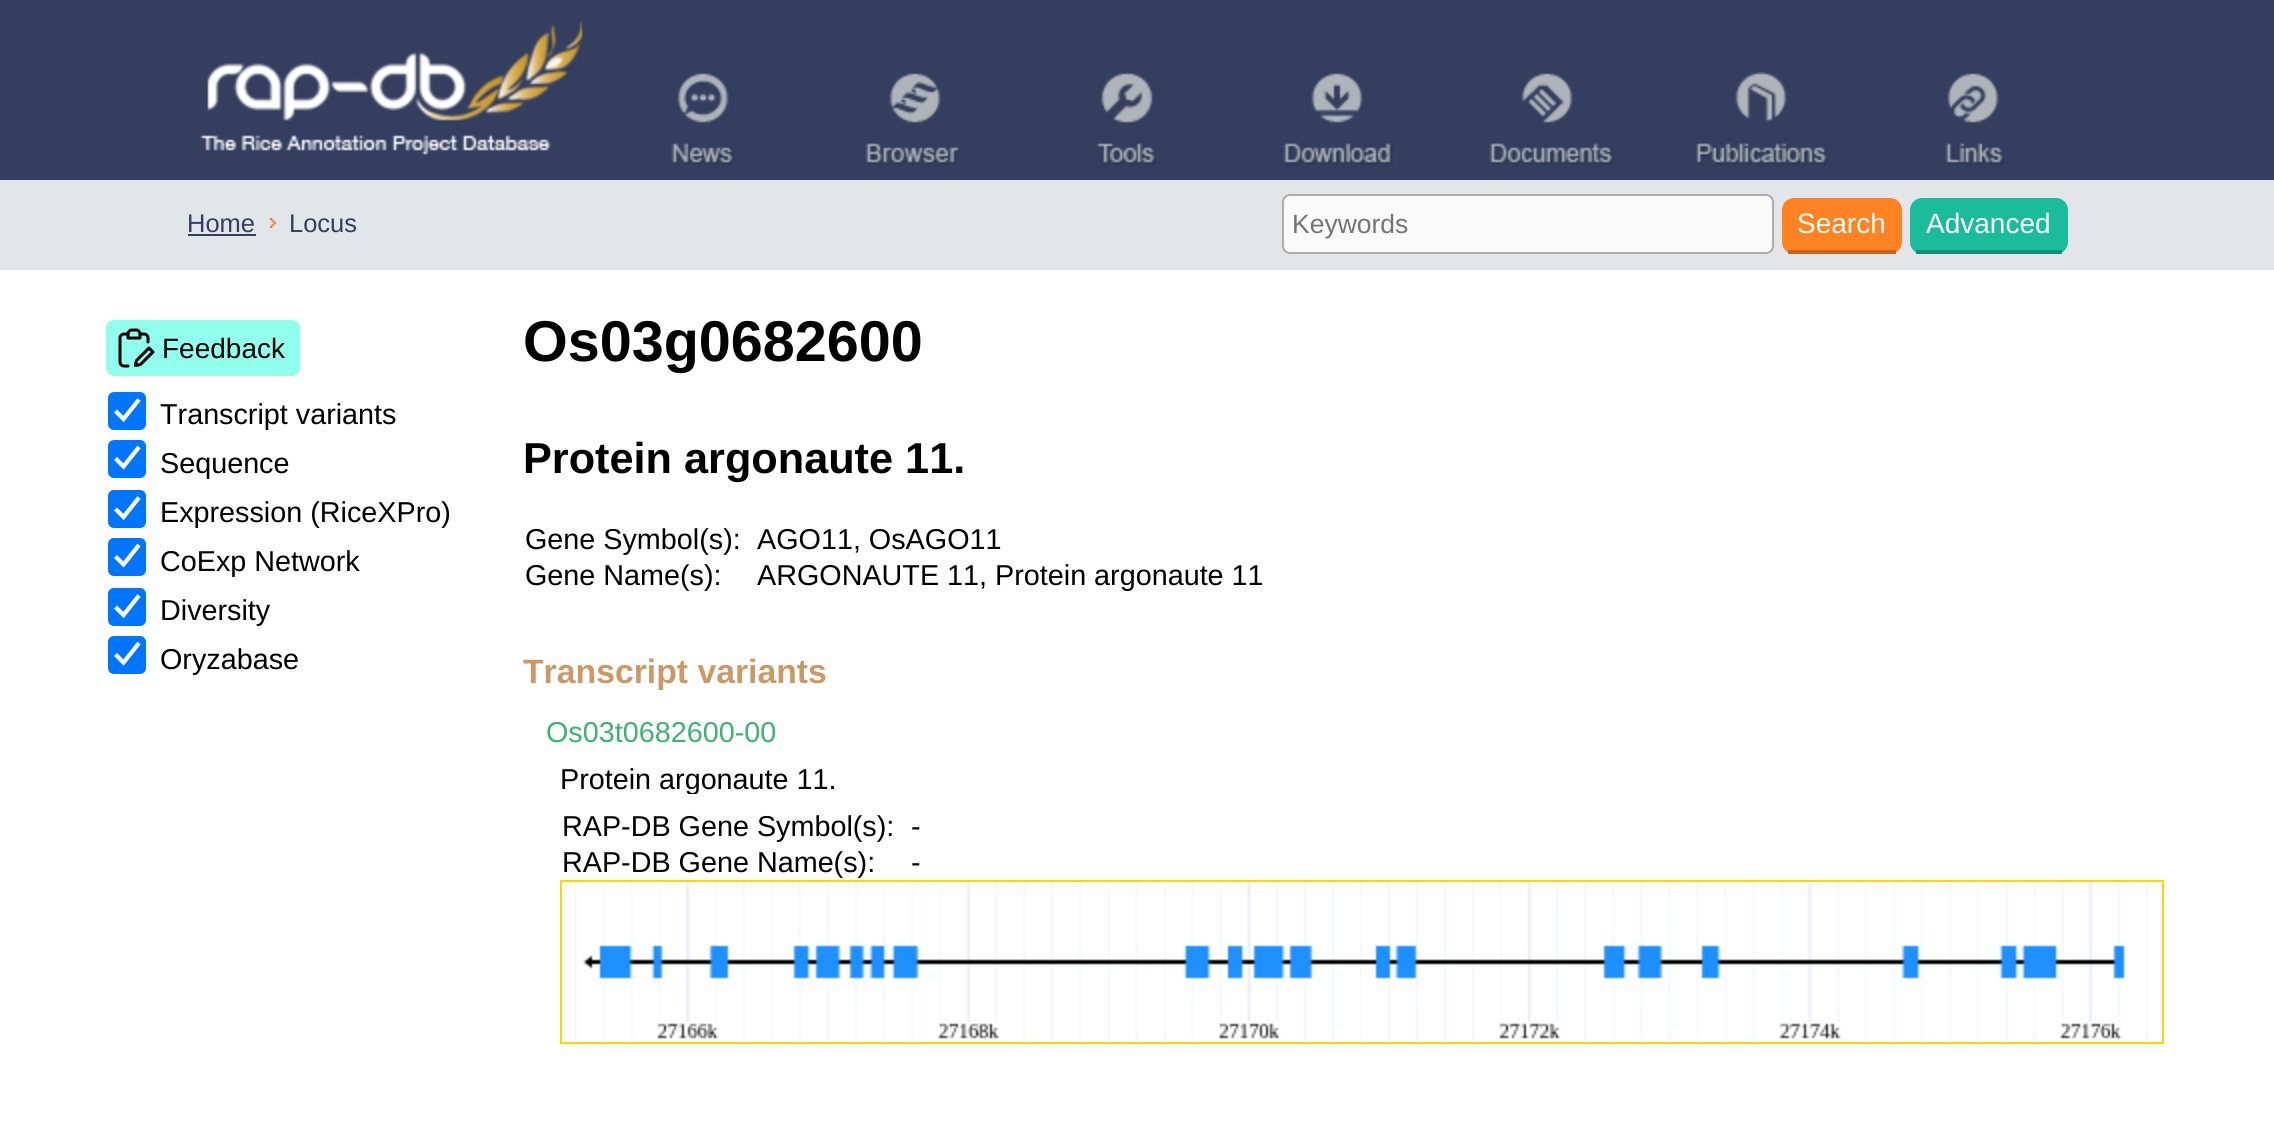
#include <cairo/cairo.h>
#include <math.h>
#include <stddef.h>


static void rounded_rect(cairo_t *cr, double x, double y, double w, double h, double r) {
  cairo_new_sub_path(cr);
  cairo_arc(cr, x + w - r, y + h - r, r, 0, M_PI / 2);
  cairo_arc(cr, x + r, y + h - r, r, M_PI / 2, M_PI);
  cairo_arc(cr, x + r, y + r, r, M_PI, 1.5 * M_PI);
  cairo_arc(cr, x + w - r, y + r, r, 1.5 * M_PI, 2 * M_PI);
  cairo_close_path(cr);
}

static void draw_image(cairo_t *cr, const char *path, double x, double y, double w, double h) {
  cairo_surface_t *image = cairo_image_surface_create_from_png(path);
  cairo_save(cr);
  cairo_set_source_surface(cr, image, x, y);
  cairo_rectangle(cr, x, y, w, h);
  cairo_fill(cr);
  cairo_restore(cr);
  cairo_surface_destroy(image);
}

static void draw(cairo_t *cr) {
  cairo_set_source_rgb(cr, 1, 1, 1);
  cairo_paint(cr);
  cairo_set_source_rgb(cr, 52 / 255.0, 62 / 255.0, 94 / 255.0);
  cairo_rectangle(cr, 0, 0, 2274, 180);
  cairo_fill(cr);
  draw_image(cr, "images/1.png", 199, 21, 384, 134);
  draw_image(cr, "images/2.png", 671, 73, 64, 93);
  draw_image(cr, "images/3.png", 865, 73, 95, 93);
  draw_image(cr, "images/4.png", 1097, 72, 60, 94);
  draw_image(cr, "images/5.png", 1283, 73, 110, 93);
  draw_image(cr, "images/6.png", 1489, 73, 125, 93);
  draw_image(cr, "images/7.png", 1696, 72, 132, 94);
  draw_image(cr, "images/8.png", 1945, 73, 60, 93);
  cairo_set_source_rgb(cr, 227 / 255.0, 230 / 255.0, 233 / 255.0);
  cairo_rectangle(cr, 0, 180, 2274, 90);
  cairo_fill(cr);
  cairo_set_source_rgb(cr, 52 / 255.0, 62 / 255.0, 94 / 255.0);
  cairo_rectangle(cr, 188, 234, 68, 2);
  cairo_fill(cr);
  draw_image(cr, "images/9.png", 270, 218, 6, 10);
  cairo_set_source_rgb(cr, 250 / 255.0, 250 / 255.0, 250 / 255.0);
  rounded_rect(cr, 1283, 195, 490, 58, 7);
  cairo_fill_preserve(cr);
  cairo_set_source_rgb(cr, 172 / 255.0, 172 / 255.0, 172 / 255.0);
  cairo_stroke(cr);
  cairo_set_source_rgb(cr, 1, 130 / 255.0, 35 / 255.0);
  rounded_rect(cr, 1782, 198, 120, 56, 12);
  cairo_fill(cr);
  cairo_set_source_rgb(cr, 196 / 255.0, 100 / 255.0, 27 / 255.0);
  cairo_rectangle(cr, 1788, 250, 108, 4);
  cairo_fill(cr);
  cairo_set_source_rgb(cr, 26 / 255.0, 188 / 255.0, 156 / 255.0);
  rounded_rect(cr, 1910, 198, 158, 56, 12);
  cairo_fill(cr);
  cairo_set_source_rgb(cr, 20 / 255.0, 144 / 255.0, 120 / 255.0);
  cairo_rectangle(cr, 1916, 250, 146, 4);
  cairo_fill(cr);
  cairo_set_source_rgb(cr, 144 / 255.0, 1, 238 / 255.0);
  rounded_rect(cr, 106, 320, 194, 56, 8);
  cairo_fill(cr);
  draw_image(cr, "images/10.png", 118, 328, 37, 40);
  cairo_set_source_rgb(cr, 0, 117 / 255.0, 1);
  rounded_rect(cr, 108, 392, 38, 38, 6);
  cairo_fill(cr);
  cairo_new_path(cr);
  cairo_move_to(cr, 115.5, 411);
  cairo_line_to(cr, 123.5, 419);
  cairo_line_to(cr, 139, 399.5);
  cairo_set_source_rgb(cr, 1, 1, 1);
  cairo_set_line_width(cr, 4.2);
  cairo_stroke(cr);
  cairo_set_source_rgb(cr, 0, 117 / 255.0, 1);
  rounded_rect(cr, 108, 440, 38, 38, 6);
  cairo_fill(cr);
  cairo_new_path(cr);
  cairo_move_to(cr, 115.5, 458.5);
  cairo_line_to(cr, 123.5, 466.5);
  cairo_line_to(cr, 139, 447);
  cairo_set_source_rgb(cr, 1, 1, 1);
  cairo_stroke(cr);
  cairo_set_source_rgb(cr, 0, 117 / 255.0, 1);
  rounded_rect(cr, 108, 490, 38, 38, 6);
  cairo_fill(cr);
  cairo_new_path(cr);
  cairo_move_to(cr, 115.5, 509);
  cairo_line_to(cr, 123.5, 517);
  cairo_line_to(cr, 139, 497.5);
  cairo_set_source_rgb(cr, 1, 1, 1);
  cairo_stroke(cr);
  cairo_set_source_rgb(cr, 0, 117 / 255.0, 1);
  rounded_rect(cr, 108, 538, 38, 38, 6);
  cairo_fill(cr);
  cairo_new_path(cr);
  cairo_move_to(cr, 115.5, 556.5);
  cairo_line_to(cr, 123.5, 564.5);
  cairo_line_to(cr, 139, 545);
  cairo_set_source_rgb(cr, 1, 1, 1);
  cairo_stroke(cr);
  cairo_set_source_rgb(cr, 0, 117 / 255.0, 1);
  rounded_rect(cr, 108, 588, 38, 38, 6);
  cairo_fill(cr);
  cairo_new_path(cr);
  cairo_move_to(cr, 115.5, 607);
  cairo_line_to(cr, 123.5, 615);
  cairo_line_to(cr, 139, 595.5);
  cairo_set_source_rgb(cr, 1, 1, 1);
  cairo_stroke(cr);
  cairo_set_source_rgb(cr, 0, 117 / 255.0, 1);
  rounded_rect(cr, 108, 636, 38, 38, 6);
  cairo_fill(cr);
  cairo_new_path(cr);
  cairo_move_to(cr, 115.5, 654.5);
  cairo_line_to(cr, 123.5, 662.5);
  cairo_line_to(cr, 139, 643);
  cairo_set_source_rgb(cr, 1, 1, 1);
  cairo_stroke(cr);
  cairo_rectangle(cr, 561, 881, 1602, 162);
  cairo_set_source_rgb(cr, 1, 215 / 255.0, 0);
  cairo_set_line_width(cr, 2);
  cairo_stroke(cr);
  draw_image(cr, "images/11.png", 574, 882, 1574, 160);
  cairo_select_font_face(cr, "Liberation Sans", CAIRO_FONT_SLANT_NORMAL, CAIRO_FONT_WEIGHT_NORMAL);
  cairo_set_font_size(cr, 25.5);
  cairo_set_source_rgb(cr, 52 / 255.0, 62 / 255.0, 94 / 255.0);
  cairo_move_to(cr, 187, 232);
  cairo_show_text(cr, "Home");
  cairo_move_to(cr, 289, 232);
  cairo_show_text(cr, "Locus");
  cairo_set_font_size(cr, 26.5);
  cairo_set_source_rgb(cr, 117 / 255.0, 117 / 255.0, 117 / 255.0);
  cairo_move_to(cr, 1292, 233);
  cairo_show_text(cr, "Keywords");
  cairo_set_font_size(cr, 28);
  cairo_set_source_rgb(cr, 1, 1, 1);
  cairo_move_to(cr, 1797, 233);
  cairo_show_text(cr, "Search");
  cairo_move_to(cr, 1926, 233);
  cairo_show_text(cr, "Advanced");
  cairo_set_source_rgb(cr, 0, 0, 0);
  cairo_move_to(cr, 162, 358);
  cairo_show_text(cr, "Feedback");
  cairo_set_font_size(cr, 28.75);
  cairo_move_to(cr, 160, 424);
  cairo_show_text(cr, "Transcript variants");
  cairo_move_to(cr, 160, 473);
  cairo_show_text(cr, "Sequence");
  cairo_move_to(cr, 160, 522);
  cairo_show_text(cr, "Expression (RiceXPro)");
  cairo_move_to(cr, 160, 571);
  cairo_show_text(cr, "CoExp Network");
  cairo_move_to(cr, 160, 620);
  cairo_show_text(cr, "Diversity");
  cairo_move_to(cr, 160, 669);
  cairo_show_text(cr, "Oryzabase");
  cairo_select_font_face(cr, "Liberation Sans", CAIRO_FONT_SLANT_NORMAL, CAIRO_FONT_WEIGHT_BOLD);
  cairo_set_font_size(cr, 57.5);
  cairo_move_to(cr, 523, 361);
  cairo_show_text(cr, "Os03g0682600");
  cairo_set_font_size(cr, 43.25);
  cairo_move_to(cr, 523, 473);
  cairo_show_text(cr, "Protein argonaute 11.");
  cairo_select_font_face(cr, "Liberation Sans", CAIRO_FONT_SLANT_NORMAL, CAIRO_FONT_WEIGHT_NORMAL);
  cairo_set_font_size(cr, 28.75);
  cairo_move_to(cr, 525, 549);
  cairo_show_text(cr, "Gene Symbol(s):");
  cairo_move_to(cr, 757, 549);
  cairo_show_text(cr, "AGO11, OsAGO11");
  cairo_move_to(cr, 525, 585);
  cairo_show_text(cr, "Gene Name(s):");
  cairo_move_to(cr, 757, 585);
  cairo_show_text(cr, "ARGONAUTE 11, Protein argonaute 11");
  cairo_select_font_face(cr, "Liberation Sans", CAIRO_FONT_SLANT_NORMAL, CAIRO_FONT_WEIGHT_BOLD);
  cairo_set_font_size(cr, 33.75);
  cairo_set_source_rgb(cr, 204 / 255.0, 153 / 255.0, 102 / 255.0);
  cairo_move_to(cr, 523, 683);
  cairo_show_text(cr, "Transcript variants");
  cairo_select_font_face(cr, "Liberation Sans", CAIRO_FONT_SLANT_NORMAL, CAIRO_FONT_WEIGHT_NORMAL);
  cairo_set_font_size(cr, 28.75);
  cairo_set_source_rgb(cr, 60 / 255.0, 179 / 255.0, 113 / 255.0);
  cairo_move_to(cr, 546, 742);
  cairo_show_text(cr, "Os03t0682600-00");
  cairo_save(cr);
  cairo_rectangle(cr, 560, 762, 1586, 32);
  cairo_clip(cr);
  cairo_set_source_rgb(cr, 0, 0, 0);
  cairo_move_to(cr, 560, 789);
  cairo_show_text(cr, "Protein argonaute 11.");
  cairo_restore(cr);
  cairo_set_source_rgb(cr, 0, 0, 0);
  cairo_move_to(cr, 562, 836);
  cairo_show_text(cr, "RAP-DB Gene Symbol(s):");
  cairo_move_to(cr, 911, 836);
  cairo_show_text(cr, "-");
  cairo_move_to(cr, 562, 872);
  cairo_show_text(cr, "RAP-DB Gene Name(s):");
  cairo_move_to(cr, 911, 872);
  cairo_show_text(cr, "-");
}

int main(void) {
  cairo_surface_t *surface = cairo_image_surface_create(CAIRO_FORMAT_RGB24, 2274, 1139);
  cairo_t *cr = cairo_create(surface);
  cairo_font_options_t *options = cairo_font_options_create();
  cairo_font_options_set_hint_metrics(options, CAIRO_HINT_METRICS_OFF);
  cairo_font_options_set_hint_style(options, CAIRO_HINT_STYLE_NONE);
  cairo_set_font_options(cr, options);
  cairo_set_miter_limit(cr, 4);
  draw(cr);
  cairo_surface_write_to_png(surface, "out.png");
  cairo_font_options_destroy(options);
  cairo_destroy(cr);
  cairo_surface_destroy(surface);
  return 0;
}
